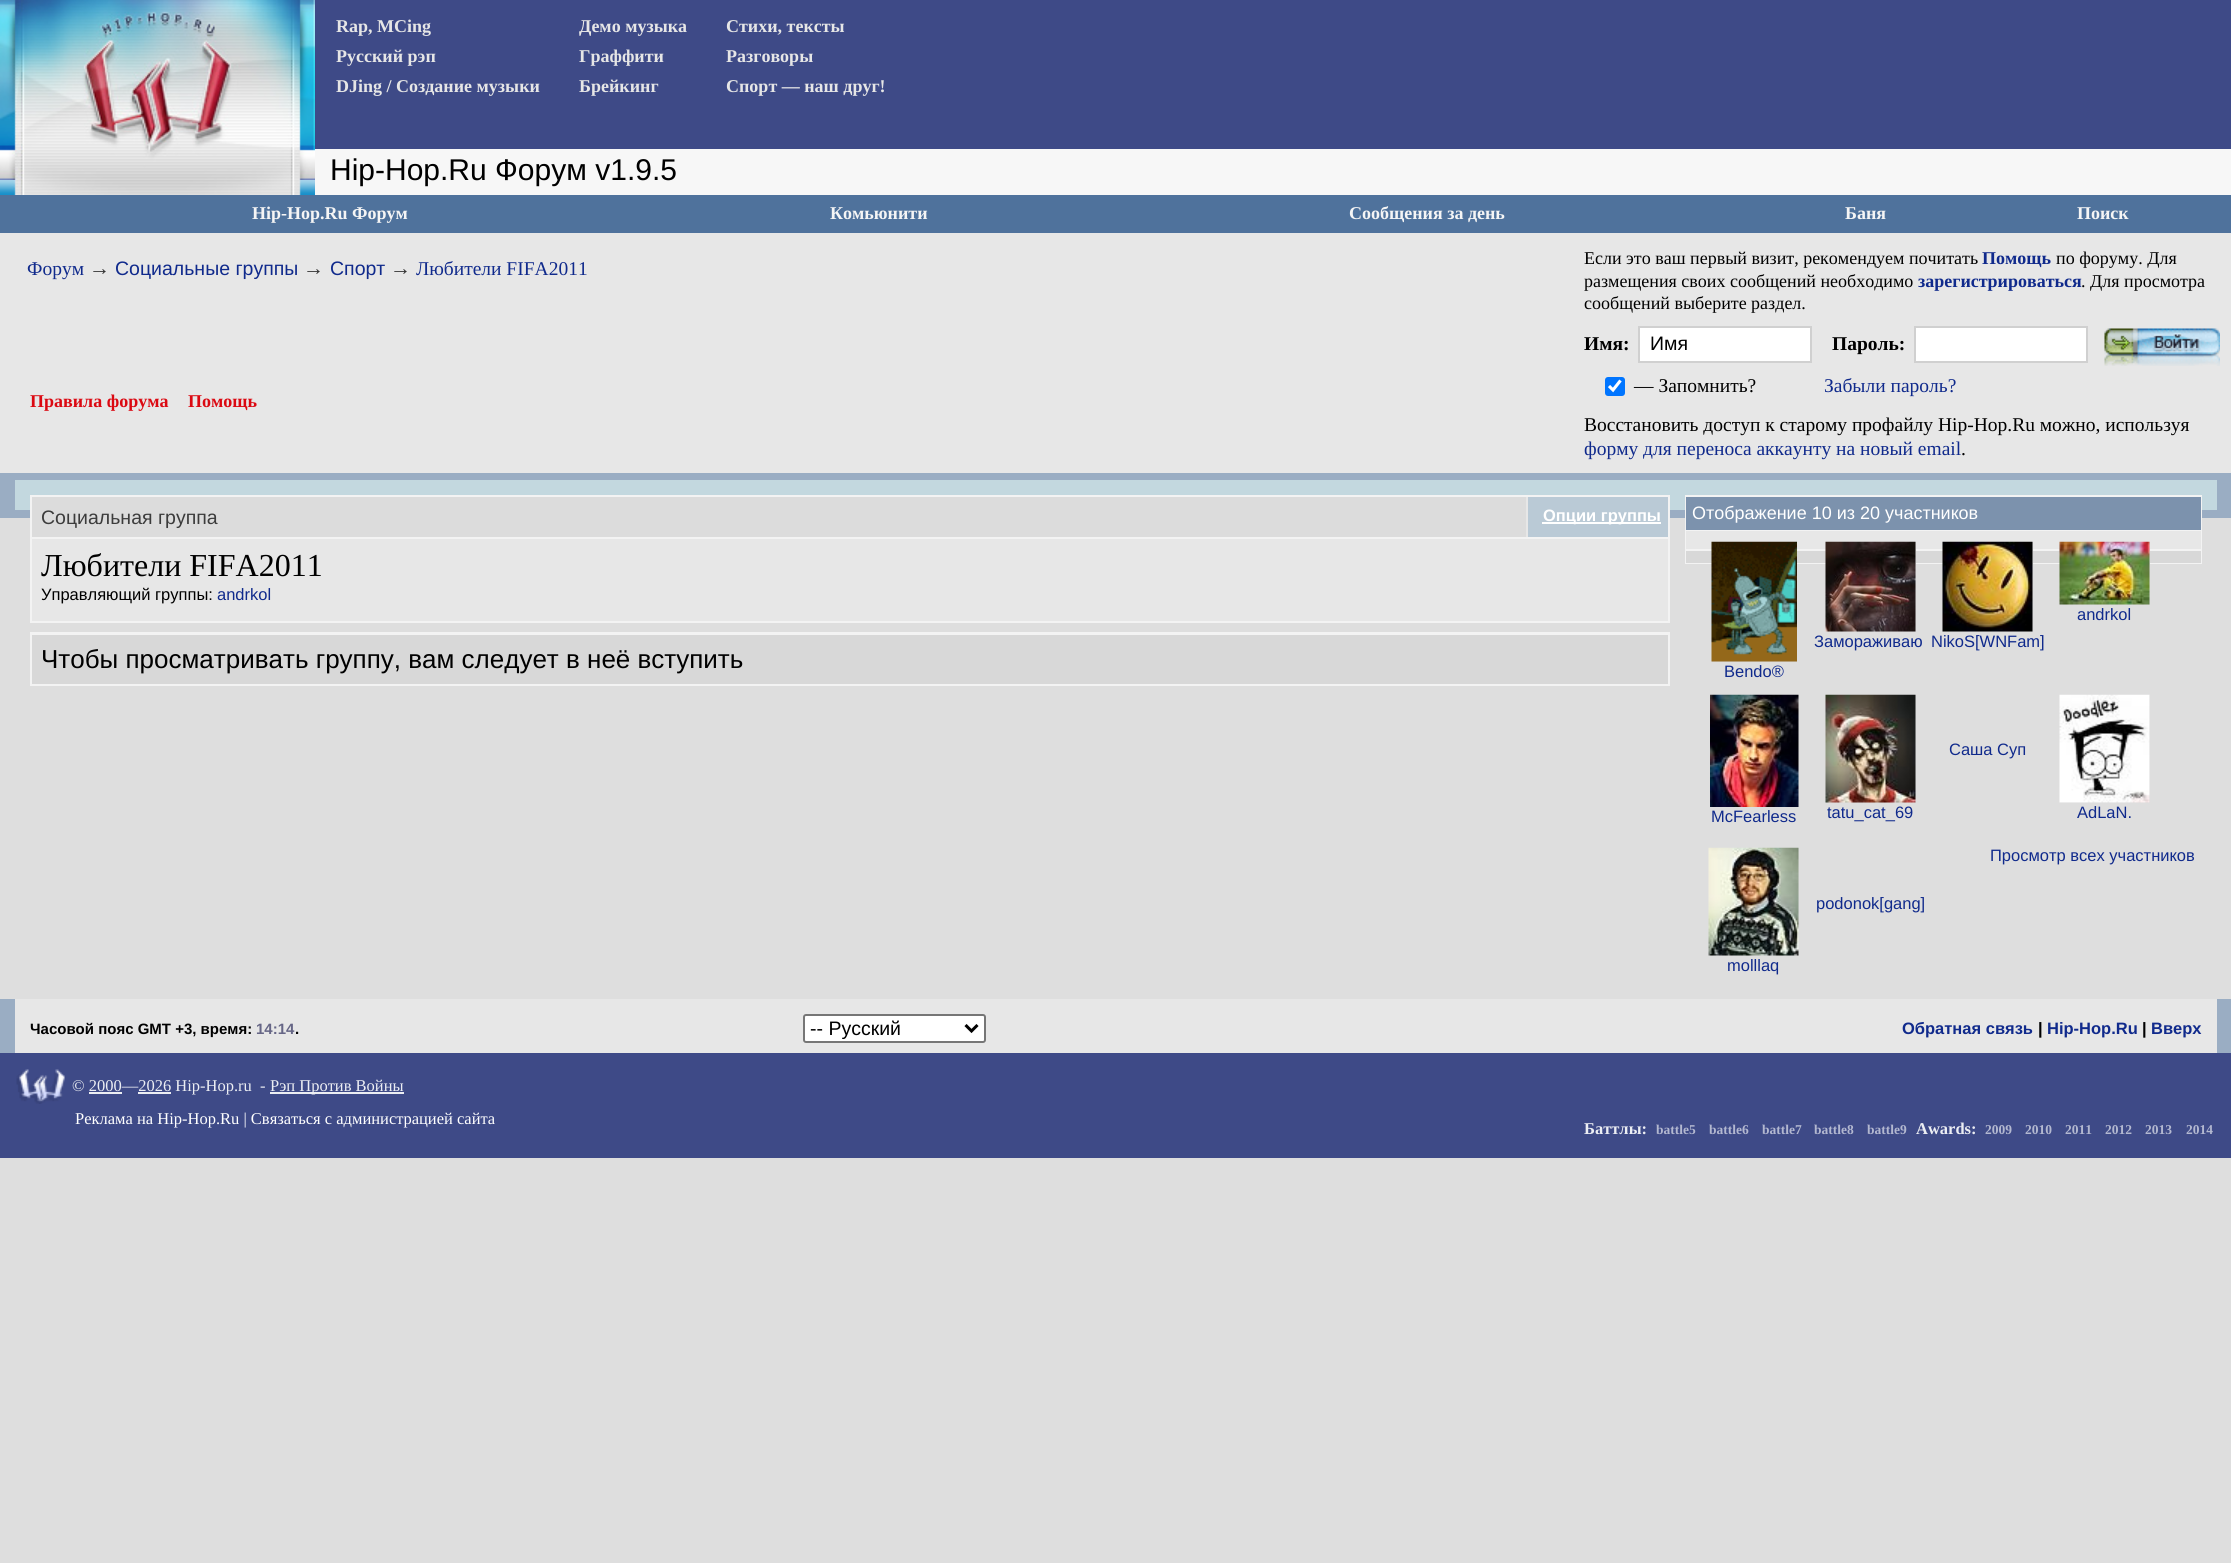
#include <cairo/cairo.h>
#include <math.h>
#include <stddef.h>


static void rounded_rect(cairo_t *cr, double x, double y, double w, double h, double r) {
  cairo_new_sub_path(cr);
  cairo_arc(cr, x + w - r, y + h - r, r, 0, M_PI / 2);
  cairo_arc(cr, x + r, y + h - r, r, M_PI / 2, M_PI);
  cairo_arc(cr, x + r, y + r, r, M_PI, 1.5 * M_PI);
  cairo_arc(cr, x + w - r, y + r, r, 1.5 * M_PI, 2 * M_PI);
  cairo_close_path(cr);
}

static void draw_image(cairo_t *cr, const char *path, double x, double y, double w, double h) {
  cairo_surface_t *image = cairo_image_surface_create_from_png(path);
  cairo_save(cr);
  cairo_set_source_surface(cr, image, x, y);
  cairo_rectangle(cr, x, y, w, h);
  cairo_fill(cr);
  cairo_restore(cr);
  cairo_surface_destroy(image);
}

static void draw(cairo_t *cr) {
  cairo_set_source_rgb(cr, 222 / 255.0, 222 / 255.0, 222 / 255.0);
  cairo_paint(cr);
  draw_image(cr, "images/1.png", 0, 0, 315, 180);
  draw_image(cr, "images/2.png", 0, 180, 315, 15);
  cairo_set_source_rgb(cr, 62 / 255.0, 74 / 255.0, 135 / 255.0);
  cairo_rectangle(cr, 315, 0, 1916, 149);
  cairo_fill(cr);
  cairo_set_source_rgb(cr, 247 / 255.0, 247 / 255.0, 247 / 255.0);
  cairo_rectangle(cr, 315, 149, 1916, 46);
  cairo_fill(cr);
  cairo_set_source_rgb(cr, 79 / 255.0, 114 / 255.0, 156 / 255.0);
  cairo_rectangle(cr, 0, 195, 2231, 38);
  cairo_fill(cr);
  cairo_set_source_rgb(cr, 231 / 255.0, 231 / 255.0, 231 / 255.0);
  cairo_rectangle(cr, 0, 233, 2231, 240);
  cairo_fill(cr);
  cairo_set_source_rgb(cr, 154 / 255.0, 173 / 255.0, 195 / 255.0);
  cairo_rectangle(cr, 0, 473, 2231, 45);
  cairo_fill(cr);
  cairo_set_source_rgb(cr, 1, 1, 1);
  cairo_rectangle(cr, 1639, 327, 172, 35);
  cairo_fill_preserve(cr);
  cairo_set_source_rgb(cr, 208 / 255.0, 208 / 255.0, 208 / 255.0);
  cairo_stroke(cr);
  cairo_set_source_rgb(cr, 1, 1, 1);
  cairo_rectangle(cr, 1915, 327, 172, 35);
  cairo_fill_preserve(cr);
  cairo_set_source_rgb(cr, 208 / 255.0, 208 / 255.0, 208 / 255.0);
  cairo_stroke(cr);
  draw_image(cr, "images/3.png", 2104, 328, 116, 38);
  cairo_set_source_rgb(cr, 0, 117 / 255.0, 1);
  rounded_rect(cr, 1605, 377, 20, 19, 3);
  cairo_fill(cr);
  cairo_new_path(cr);
  cairo_move_to(cr, 1609, 386);
  cairo_line_to(cr, 1613, 390);
  cairo_line_to(cr, 1620.5, 380.5);
  cairo_set_source_rgb(cr, 1, 1, 1);
  cairo_set_line_width(cr, 3.1);
  cairo_stroke(cr);
  cairo_set_source_rgb(cr, 195 / 255.0, 216 / 255.0, 223 / 255.0);
  cairo_rectangle(cr, 15, 480, 2202, 30);
  cairo_fill(cr);
  cairo_set_source_rgb(cr, 243 / 255.0, 243 / 255.0, 243 / 255.0);
  cairo_rectangle(cr, 30, 495, 1640, 128);
  cairo_fill(cr);
  cairo_set_source_rgb(cr, 220 / 255.0, 220 / 255.0, 220 / 255.0);
  cairo_rectangle(cr, 32, 497, 1494, 40);
  cairo_fill(cr);
  cairo_set_source_rgb(cr, 186 / 255.0, 202 / 255.0, 214 / 255.0);
  cairo_rectangle(cr, 1528, 497, 140, 40);
  cairo_fill(cr);
  cairo_set_source_rgb(cr, 231 / 255.0, 231 / 255.0, 231 / 255.0);
  cairo_rectangle(cr, 1526, 497, 2, 40);
  cairo_fill(cr);
  cairo_set_source_rgb(cr, 1, 1, 1);
  cairo_rectangle(cr, 1542, 522, 119, 2);
  cairo_fill(cr);
  cairo_set_source_rgb(cr, 231 / 255.0, 231 / 255.0, 231 / 255.0);
  cairo_rectangle(cr, 32, 539, 1636, 82);
  cairo_fill(cr);
  cairo_set_source_rgb(cr, 243 / 255.0, 243 / 255.0, 243 / 255.0);
  cairo_rectangle(cr, 30, 632, 1640, 54);
  cairo_fill(cr);
  cairo_set_source_rgb(cr, 216 / 255.0, 216 / 255.0, 216 / 255.0);
  cairo_rectangle(cr, 32, 635, 1636, 49);
  cairo_fill(cr);
  cairo_set_source_rgb(cr, 243 / 255.0, 243 / 255.0, 243 / 255.0);
  cairo_rectangle(cr, 1685, 495, 517, 69);
  cairo_fill(cr);
  cairo_set_source_rgb(cr, 124 / 255.0, 146 / 255.0, 173 / 255.0);
  cairo_rectangle(cr, 1686, 497, 515, 33);
  cairo_fill(cr);
  cairo_set_source_rgb(cr, 231 / 255.0, 231 / 255.0, 231 / 255.0);
  cairo_rectangle(cr, 1686, 531, 515, 18);
  cairo_fill(cr);
  cairo_set_source_rgb(cr, 216 / 255.0, 216 / 255.0, 216 / 255.0);
  cairo_rectangle(cr, 1686, 551, 515, 12);
  cairo_fill(cr);
  cairo_rectangle(cr, 2060, 542, 90, 63);
  cairo_fill(cr);
  draw_image(cr, "images/4.png", 2059, 541, 91, 64);
  cairo_rectangle(cr, 1826, 542, 90, 90);
  cairo_fill(cr);
  draw_image(cr, "images/5.png", 1825, 541, 91, 91);
  cairo_rectangle(cr, 1943, 542, 90, 90);
  cairo_fill(cr);
  draw_image(cr, "images/6.png", 1942, 541, 91, 91);
  cairo_rectangle(cr, 1712, 661, 85, 1);
  cairo_fill(cr);
  draw_image(cr, "images/7.png", 1711, 541, 86, 121);
  cairo_rectangle(cr, 1798, 695, 1, 112);
  cairo_fill(cr);
  draw_image(cr, "images/8.png", 1710, 694, 89, 113);
  cairo_rectangle(cr, 1826, 695, 90, 108);
  cairo_fill(cr);
  draw_image(cr, "images/9.png", 1825, 694, 91, 109);
  cairo_rectangle(cr, 2060, 695, 90, 108);
  cairo_fill(cr);
  draw_image(cr, "images/10.png", 2059, 694, 91, 109);
  cairo_rectangle(cr, 1709, 848, 90, 108);
  cairo_fill(cr);
  draw_image(cr, "images/11.png", 1708, 847, 91, 109);
  cairo_set_source_rgb(cr, 154 / 255.0, 173 / 255.0, 195 / 255.0);
  cairo_rectangle(cr, 0, 999, 2231, 54);
  cairo_fill(cr);
  cairo_set_source_rgb(cr, 231 / 255.0, 231 / 255.0, 231 / 255.0);
  cairo_rectangle(cr, 15, 999, 2202, 54);
  cairo_fill(cr);
  cairo_set_source_rgb(cr, 1, 1, 1);
  rounded_rect(cr, 804, 1015, 181, 27, 2);
  cairo_fill_preserve(cr);
  cairo_set_source_rgb(cr, 118 / 255.0, 118 / 255.0, 118 / 255.0);
  cairo_set_line_width(cr, 2);
  cairo_stroke(cr);
  cairo_new_path(cr);
  cairo_move_to(cr, 965.5, 1025);
  cairo_line_to(cr, 971.5, 1031);
  cairo_line_to(cr, 977.5, 1025);
  cairo_set_source_rgb(cr, 0, 0, 0);
  cairo_set_line_width(cr, 3);
  cairo_stroke(cr);
  cairo_set_source_rgb(cr, 62 / 255.0, 74 / 255.0, 135 / 255.0);
  cairo_rectangle(cr, 0, 1053, 2231, 105);
  cairo_fill(cr);
  draw_image(cr, "images/12.png", 16, 1069, 49, 35);
  cairo_set_source_rgb(cr, 236 / 255.0, 238 / 255.0, 243 / 255.0);
  cairo_rectangle(cr, 89, 1092, 33, 2);
  cairo_fill(cr);
  cairo_rectangle(cr, 138, 1092, 33, 2);
  cairo_fill(cr);
  cairo_rectangle(cr, 270, 1092, 134, 2);
  cairo_fill(cr);
  cairo_select_font_face(cr, "Liberation Serif", CAIRO_FONT_SLANT_NORMAL, CAIRO_FONT_WEIGHT_BOLD);
  cairo_set_font_size(cr, 18);
  cairo_set_source_rgb(cr, 230 / 255.0, 230 / 255.0, 230 / 255.0);
  cairo_move_to(cr, 336, 32);
  cairo_show_text(cr, "Rap, MCing");
  cairo_move_to(cr, 336, 62);
  cairo_show_text(cr, "Русский рэп");
  cairo_move_to(cr, 336, 92);
  cairo_show_text(cr, "DJing / Создание музыки");
  cairo_move_to(cr, 579, 32);
  cairo_show_text(cr, "Демо музыка");
  cairo_move_to(cr, 579, 62);
  cairo_show_text(cr, "Граффити");
  cairo_move_to(cr, 579, 92);
  cairo_show_text(cr, "Брейкинг");
  cairo_move_to(cr, 726, 32);
  cairo_show_text(cr, "Стихи, тексты");
  cairo_move_to(cr, 726, 62);
  cairo_show_text(cr, "Разговоры");
  cairo_move_to(cr, 726, 92);
  cairo_show_text(cr, "Спорт — наш друг!");
  cairo_select_font_face(cr, "Liberation Sans", CAIRO_FONT_SLANT_NORMAL, CAIRO_FONT_WEIGHT_NORMAL);
  cairo_set_font_size(cr, 30);
  cairo_set_source_rgb(cr, 0, 0, 0);
  cairo_move_to(cr, 330, 180);
  cairo_show_text(cr, "Hip-Hop.Ru Форум v1.9.5");
  cairo_select_font_face(cr, "Liberation Serif", CAIRO_FONT_SLANT_NORMAL, CAIRO_FONT_WEIGHT_BOLD);
  cairo_set_font_size(cr, 18);
  cairo_set_source_rgb(cr, 245 / 255.0, 245 / 255.0, 245 / 255.0);
  cairo_move_to(cr, 252, 219);
  cairo_show_text(cr, "Hip-Hop.Ru Форум");
  cairo_move_to(cr, 830, 219);
  cairo_show_text(cr, "Комьюнити");
  cairo_move_to(cr, 1349, 219);
  cairo_show_text(cr, "Сообщения за день");
  cairo_move_to(cr, 1845, 219);
  cairo_show_text(cr, "Баня");
  cairo_move_to(cr, 2077, 219);
  cairo_show_text(cr, "Поиск");
  cairo_select_font_face(cr, "Liberation Serif", CAIRO_FONT_SLANT_NORMAL, CAIRO_FONT_WEIGHT_NORMAL);
  cairo_set_font_size(cr, 19.5);
  cairo_set_source_rgb(cr, 16 / 255.0, 42 / 255.0, 140 / 255.0);
  cairo_move_to(cr, 27, 275);
  cairo_show_text(cr, "Форум");
  cairo_select_font_face(cr, "Liberation Sans", CAIRO_FONT_SLANT_NORMAL, CAIRO_FONT_WEIGHT_NORMAL);
  cairo_set_font_size(cr, 21);
  cairo_set_source_rgb(cr, 51 / 255.0, 51 / 255.0, 51 / 255.0);
  cairo_move_to(cr, 89, 275);
  cairo_show_text(cr, "→");
  cairo_set_font_size(cr, 19.5);
  cairo_set_source_rgb(cr, 16 / 255.0, 42 / 255.0, 140 / 255.0);
  cairo_move_to(cr, 115, 275);
  cairo_show_text(cr, "Социальные группы");
  cairo_set_font_size(cr, 21);
  cairo_set_source_rgb(cr, 51 / 255.0, 51 / 255.0, 51 / 255.0);
  cairo_move_to(cr, 303, 275);
  cairo_show_text(cr, "→");
  cairo_set_font_size(cr, 19.5);
  cairo_set_source_rgb(cr, 16 / 255.0, 42 / 255.0, 140 / 255.0);
  cairo_move_to(cr, 330, 275);
  cairo_show_text(cr, "Спорт");
  cairo_select_font_face(cr, "Liberation Serif", CAIRO_FONT_SLANT_NORMAL, CAIRO_FONT_WEIGHT_NORMAL);
  cairo_set_font_size(cr, 21);
  cairo_set_source_rgb(cr, 51 / 255.0, 51 / 255.0, 51 / 255.0);
  cairo_move_to(cr, 390, 275);
  cairo_show_text(cr, "→");
  cairo_set_font_size(cr, 19.5);
  cairo_set_source_rgb(cr, 16 / 255.0, 42 / 255.0, 140 / 255.0);
  cairo_move_to(cr, 416, 275);
  cairo_show_text(cr, "Любители FIFA2011");
  cairo_select_font_face(cr, "Liberation Serif", CAIRO_FONT_SLANT_NORMAL, CAIRO_FONT_WEIGHT_BOLD);
  cairo_set_font_size(cr, 18);
  cairo_set_source_rgb(cr, 219 / 255.0, 9 / 255.0, 18 / 255.0);
  cairo_move_to(cr, 30, 407);
  cairo_show_text(cr, "Правила форума");
  cairo_move_to(cr, 188, 407);
  cairo_show_text(cr, "Помощь");
  cairo_select_font_face(cr, "Liberation Serif", CAIRO_FONT_SLANT_NORMAL, CAIRO_FONT_WEIGHT_NORMAL);
  cairo_set_source_rgb(cr, 0, 0, 0);
  cairo_move_to(cr, 1584, 264);
  cairo_show_text(cr, "Если это ваш первый визит, рекомендуем почитать");
  cairo_select_font_face(cr, "Liberation Serif", CAIRO_FONT_SLANT_NORMAL, CAIRO_FONT_WEIGHT_BOLD);
  cairo_set_source_rgb(cr, 16 / 255.0, 42 / 255.0, 140 / 255.0);
  cairo_move_to(cr, 1982, 264);
  cairo_show_text(cr, "Помощь");
  cairo_select_font_face(cr, "Liberation Serif", CAIRO_FONT_SLANT_NORMAL, CAIRO_FONT_WEIGHT_NORMAL);
  cairo_set_source_rgb(cr, 0, 0, 0);
  cairo_move_to(cr, 2056, 264);
  cairo_show_text(cr, "по форуму. Для");
  cairo_move_to(cr, 1584, 287);
  cairo_show_text(cr, "размещения своих сообщений необходимо");
  cairo_select_font_face(cr, "Liberation Serif", CAIRO_FONT_SLANT_NORMAL, CAIRO_FONT_WEIGHT_BOLD);
  cairo_set_source_rgb(cr, 16 / 255.0, 42 / 255.0, 140 / 255.0);
  cairo_move_to(cr, 1918, 287);
  cairo_show_text(cr, "зарегистрироваться");
  cairo_select_font_face(cr, "Liberation Serif", CAIRO_FONT_SLANT_NORMAL, CAIRO_FONT_WEIGHT_NORMAL);
  cairo_set_source_rgb(cr, 0, 0, 0);
  cairo_move_to(cr, 2081, 287);
  cairo_show_text(cr, ". Для просмотра");
  cairo_move_to(cr, 1584, 309);
  cairo_show_text(cr, "сообщений выберите раздел.");
  cairo_select_font_face(cr, "Liberation Serif", CAIRO_FONT_SLANT_NORMAL, CAIRO_FONT_WEIGHT_BOLD);
  cairo_set_font_size(cr, 19.5);
  cairo_move_to(cr, 1584, 350);
  cairo_show_text(cr, "Имя:");
  cairo_select_font_face(cr, "Liberation Sans", CAIRO_FONT_SLANT_NORMAL, CAIRO_FONT_WEIGHT_NORMAL);
  cairo_move_to(cr, 1650, 350);
  cairo_show_text(cr, "Имя");
  cairo_select_font_face(cr, "Liberation Serif", CAIRO_FONT_SLANT_NORMAL, CAIRO_FONT_WEIGHT_BOLD);
  cairo_move_to(cr, 1832, 350);
  cairo_show_text(cr, "Пароль:");
  cairo_select_font_face(cr, "Liberation Serif", CAIRO_FONT_SLANT_NORMAL, CAIRO_FONT_WEIGHT_NORMAL);
  cairo_move_to(cr, 1634, 392);
  cairo_show_text(cr, "— Запомнить?");
  cairo_set_source_rgb(cr, 16 / 255.0, 42 / 255.0, 140 / 255.0);
  cairo_move_to(cr, 1824, 392);
  cairo_show_text(cr, "Забыли пароль?");
  cairo_set_source_rgb(cr, 0, 0, 0);
  cairo_move_to(cr, 1584, 431);
  cairo_show_text(cr, "Восстановить доступ к старому профайлу Hip-Hop.Ru можно, используя");
  cairo_set_source_rgb(cr, 16 / 255.0, 42 / 255.0, 140 / 255.0);
  cairo_move_to(cr, 1584, 455);
  cairo_show_text(cr, "форму для переноса аккаунту на новый email");
  cairo_set_source_rgb(cr, 0, 0, 0);
  cairo_move_to(cr, 1961, 455);
  cairo_show_text(cr, ".");
  cairo_select_font_face(cr, "Liberation Sans", CAIRO_FONT_SLANT_NORMAL, CAIRO_FONT_WEIGHT_NORMAL);
  cairo_set_source_rgb(cr, 60 / 255.0, 60 / 255.0, 60 / 255.0);
  cairo_move_to(cr, 41, 524);
  cairo_show_text(cr, "Социальная группа");
  cairo_select_font_face(cr, "Liberation Sans", CAIRO_FONT_SLANT_NORMAL, CAIRO_FONT_WEIGHT_BOLD);
  cairo_set_font_size(cr, 16.5);
  cairo_set_source_rgb(cr, 1, 1, 1);
  cairo_move_to(cr, 1543, 521);
  cairo_show_text(cr, "Опции группы");
  cairo_select_font_face(cr, "Liberation Serif", CAIRO_FONT_SLANT_NORMAL, CAIRO_FONT_WEIGHT_NORMAL);
  cairo_set_font_size(cr, 32);
  cairo_set_source_rgb(cr, 0, 0, 0);
  cairo_move_to(cr, 41, 576);
  cairo_show_text(cr, "Любители FIFA2011");
  cairo_select_font_face(cr, "Liberation Sans", CAIRO_FONT_SLANT_NORMAL, CAIRO_FONT_WEIGHT_NORMAL);
  cairo_set_font_size(cr, 16.5);
  cairo_move_to(cr, 41, 600);
  cairo_show_text(cr, "Управляющий группы:");
  cairo_set_source_rgb(cr, 16 / 255.0, 42 / 255.0, 140 / 255.0);
  cairo_move_to(cr, 217, 600);
  cairo_show_text(cr, "andrkol");
  cairo_set_font_size(cr, 26);
  cairo_set_source_rgb(cr, 0, 0, 0);
  cairo_move_to(cr, 41, 668);
  cairo_show_text(cr, "Чтобы просматривать группу, вам следует в неё вступить");
  cairo_set_font_size(cr, 18);
  cairo_set_source_rgb(cr, 1, 1, 1);
  cairo_move_to(cr, 1692, 519);
  cairo_show_text(cr, "Отображение 10 из 20 участников");
  cairo_set_font_size(cr, 16.5);
  cairo_set_source_rgb(cr, 16 / 255.0, 42 / 255.0, 140 / 255.0);
  cairo_move_to(cr, 2077, 620);
  cairo_show_text(cr, "andrkol");
  cairo_move_to(cr, 1814, 647);
  cairo_show_text(cr, "Замораживаю");
  cairo_move_to(cr, 1931, 647);
  cairo_show_text(cr, "NikoS[WNFam]");
  cairo_move_to(cr, 1724, 677);
  cairo_show_text(cr, "Bendo®");
  cairo_move_to(cr, 1949, 755);
  cairo_show_text(cr, "Саша Суп");
  cairo_move_to(cr, 1711, 822);
  cairo_show_text(cr, "McFearless");
  cairo_move_to(cr, 1827, 818);
  cairo_show_text(cr, "tatu_cat_69");
  cairo_move_to(cr, 2077, 818);
  cairo_show_text(cr, "AdLaN.");
  cairo_move_to(cr, 1816, 909);
  cairo_show_text(cr, "podonok[gang]");
  cairo_move_to(cr, 1727, 971);
  cairo_show_text(cr, "molllaq");
  cairo_move_to(cr, 1990, 861);
  cairo_show_text(cr, "Просмотр всех участников");
  cairo_select_font_face(cr, "Liberation Sans", CAIRO_FONT_SLANT_NORMAL, CAIRO_FONT_WEIGHT_BOLD);
  cairo_set_font_size(cr, 15);
  cairo_set_source_rgb(cr, 0, 0, 0);
  cairo_move_to(cr, 30, 1034);
  cairo_show_text(cr, "Часовой пояс GMT +3, время:");
  cairo_set_source_rgb(cr, 102 / 255.0, 102 / 255.0, 134 / 255.0);
  cairo_move_to(cr, 256, 1034);
  cairo_show_text(cr, "14:14");
  cairo_set_source_rgb(cr, 0, 0, 0);
  cairo_move_to(cr, 295, 1034);
  cairo_show_text(cr, ".");
  cairo_select_font_face(cr, "Liberation Sans", CAIRO_FONT_SLANT_NORMAL, CAIRO_FONT_WEIGHT_NORMAL);
  cairo_set_font_size(cr, 19.5);
  cairo_move_to(cr, 810, 1035);
  cairo_show_text(cr, "-- Русский");
  cairo_select_font_face(cr, "Liberation Sans", CAIRO_FONT_SLANT_NORMAL, CAIRO_FONT_WEIGHT_BOLD);
  cairo_set_font_size(cr, 16.5);
  cairo_set_source_rgb(cr, 16 / 255.0, 42 / 255.0, 140 / 255.0);
  cairo_move_to(cr, 1902, 1034);
  cairo_show_text(cr, "Обратная связь");
  cairo_set_source_rgb(cr, 0, 0, 0);
  cairo_move_to(cr, 2038, 1034);
  cairo_show_text(cr, "|");
  cairo_set_source_rgb(cr, 16 / 255.0, 42 / 255.0, 140 / 255.0);
  cairo_move_to(cr, 2047, 1034);
  cairo_show_text(cr, "Hip-Hop.Ru");
  cairo_set_source_rgb(cr, 0, 0, 0);
  cairo_move_to(cr, 2142, 1034);
  cairo_show_text(cr, "|");
  cairo_set_source_rgb(cr, 16 / 255.0, 42 / 255.0, 140 / 255.0);
  cairo_move_to(cr, 2151, 1034);
  cairo_show_text(cr, "Вверх");
  cairo_select_font_face(cr, "Liberation Serif", CAIRO_FONT_SLANT_NORMAL, CAIRO_FONT_WEIGHT_NORMAL);
  cairo_set_source_rgb(cr, 236 / 255.0, 238 / 255.0, 243 / 255.0);
  cairo_move_to(cr, 72, 1091);
  cairo_show_text(cr, "© 2000—2026 Hip-Hop.ru");
  cairo_move_to(cr, 260, 1091);
  cairo_show_text(cr, "-");
  cairo_move_to(cr, 270, 1091);
  cairo_show_text(cr, "Рэп Против Войны");
  cairo_set_source_rgb(cr, 1, 1, 1);
  cairo_move_to(cr, 75, 1124);
  cairo_show_text(cr, "Реклама на Hip-Hop.Ru | Связаться с администрацией сайта");
  cairo_select_font_face(cr, "Liberation Serif", CAIRO_FONT_SLANT_NORMAL, CAIRO_FONT_WEIGHT_BOLD);
  cairo_set_source_rgb(cr, 236 / 255.0, 238 / 255.0, 243 / 255.0);
  cairo_move_to(cr, 1584, 1134);
  cairo_show_text(cr, "Баттлы:");
  cairo_set_font_size(cr, 13.5);
  cairo_set_source_rgb(cr, 179 / 255.0, 184 / 255.0, 208 / 255.0);
  cairo_move_to(cr, 1656, 1134);
  cairo_show_text(cr, "battle5");
  cairo_move_to(cr, 1709, 1134);
  cairo_show_text(cr, "battle6");
  cairo_move_to(cr, 1762, 1134);
  cairo_show_text(cr, "battle7");
  cairo_move_to(cr, 1814, 1134);
  cairo_show_text(cr, "battle8");
  cairo_move_to(cr, 1867, 1134);
  cairo_show_text(cr, "battle9");
  cairo_set_font_size(cr, 16.5);
  cairo_set_source_rgb(cr, 236 / 255.0, 238 / 255.0, 243 / 255.0);
  cairo_move_to(cr, 1916, 1134);
  cairo_show_text(cr, "Awards:");
  cairo_set_font_size(cr, 13.5);
  cairo_set_source_rgb(cr, 179 / 255.0, 184 / 255.0, 208 / 255.0);
  cairo_move_to(cr, 1985, 1134);
  cairo_show_text(cr, "2009");
  cairo_move_to(cr, 2025, 1134);
  cairo_show_text(cr, "2010");
  cairo_move_to(cr, 2065, 1134);
  cairo_show_text(cr, "2011");
  cairo_move_to(cr, 2105, 1134);
  cairo_show_text(cr, "2012");
  cairo_move_to(cr, 2145, 1134);
  cairo_show_text(cr, "2013");
  cairo_move_to(cr, 2186, 1134);
  cairo_show_text(cr, "2014");
}

int main(void) {
  cairo_surface_t *surface = cairo_image_surface_create(CAIRO_FORMAT_RGB24, 2231, 1563);
  cairo_t *cr = cairo_create(surface);
  cairo_font_options_t *options = cairo_font_options_create();
  cairo_font_options_set_hint_metrics(options, CAIRO_HINT_METRICS_OFF);
  cairo_font_options_set_hint_style(options, CAIRO_HINT_STYLE_NONE);
  cairo_set_font_options(cr, options);
  cairo_set_miter_limit(cr, 4);
  draw(cr);
  cairo_surface_write_to_png(surface, "out.png");
  cairo_font_options_destroy(options);
  cairo_destroy(cr);
  cairo_surface_destroy(surface);
  return 0;
}
